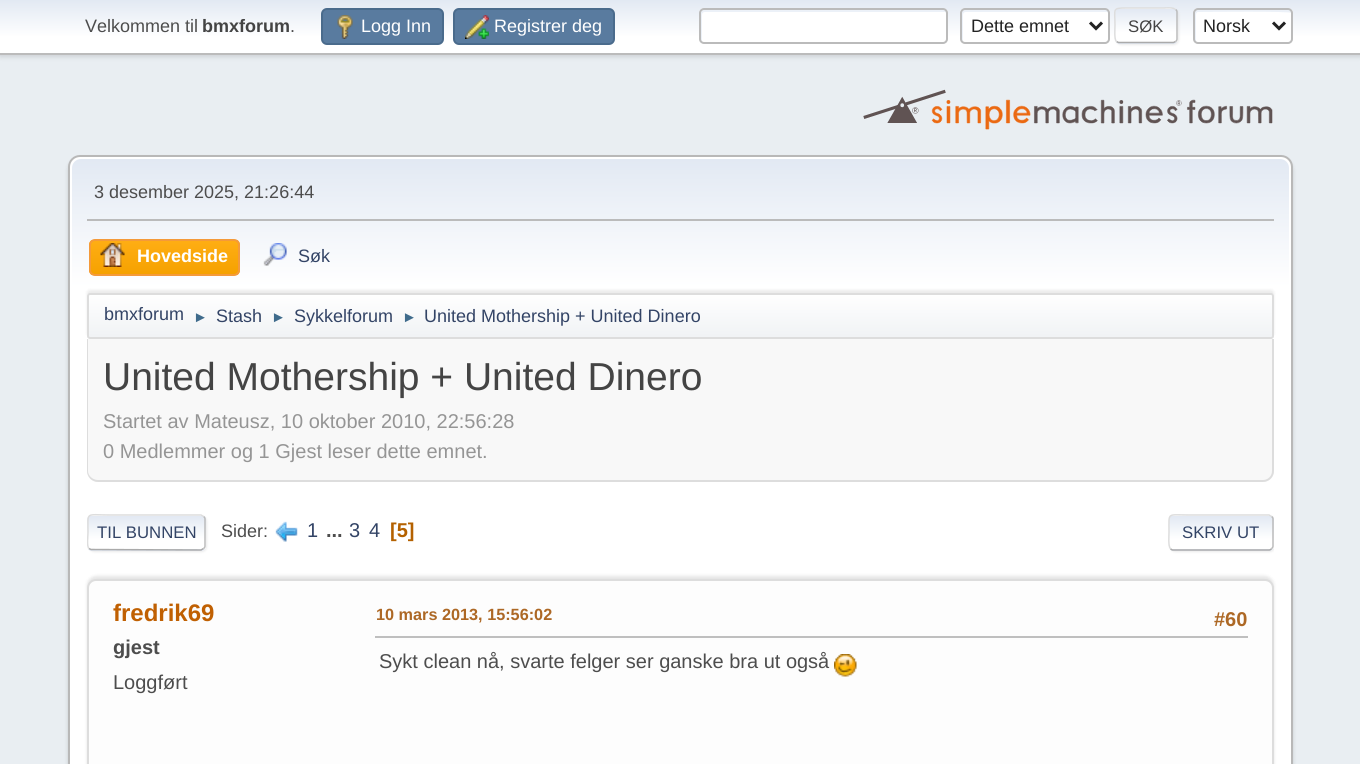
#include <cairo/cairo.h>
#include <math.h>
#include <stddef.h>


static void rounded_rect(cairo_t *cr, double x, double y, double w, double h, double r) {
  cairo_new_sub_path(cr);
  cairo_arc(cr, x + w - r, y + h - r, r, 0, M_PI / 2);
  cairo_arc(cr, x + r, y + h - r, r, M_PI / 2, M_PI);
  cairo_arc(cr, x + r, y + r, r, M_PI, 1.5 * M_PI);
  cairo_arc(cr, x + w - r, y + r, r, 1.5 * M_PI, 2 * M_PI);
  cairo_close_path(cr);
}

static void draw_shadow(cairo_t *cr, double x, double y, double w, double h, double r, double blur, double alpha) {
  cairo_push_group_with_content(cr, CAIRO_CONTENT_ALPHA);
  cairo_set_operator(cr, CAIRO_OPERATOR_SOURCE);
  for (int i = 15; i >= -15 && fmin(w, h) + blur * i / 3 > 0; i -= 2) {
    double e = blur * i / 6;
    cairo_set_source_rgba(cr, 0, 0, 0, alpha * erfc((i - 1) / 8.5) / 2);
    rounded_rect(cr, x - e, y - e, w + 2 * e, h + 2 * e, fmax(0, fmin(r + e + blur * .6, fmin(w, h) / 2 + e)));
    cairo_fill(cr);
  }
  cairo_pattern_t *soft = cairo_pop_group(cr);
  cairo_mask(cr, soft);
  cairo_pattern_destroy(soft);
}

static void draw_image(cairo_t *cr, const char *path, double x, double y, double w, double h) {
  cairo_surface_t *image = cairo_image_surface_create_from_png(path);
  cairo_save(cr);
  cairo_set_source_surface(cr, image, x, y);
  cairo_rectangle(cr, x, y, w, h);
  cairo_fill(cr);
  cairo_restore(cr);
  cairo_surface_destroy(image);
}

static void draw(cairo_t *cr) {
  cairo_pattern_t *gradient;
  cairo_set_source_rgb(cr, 233 / 255.0, 238 / 255.0, 242 / 255.0);
  cairo_paint(cr);
  cairo_set_source_rgb(cr, 0, 0, 0);
  draw_shadow(cr, 0, 2, 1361, 54, 0, 3, 0.16);
  gradient = cairo_pattern_create_linear(680, 0, 680, 53);
  cairo_pattern_add_color_stop_rgba(gradient, 0, 226 / 255.0, 233 / 255.0, 243 / 255.0, 1);
  cairo_pattern_add_color_stop_rgba(gradient, 0.7, 1, 1, 1, 1);
  cairo_set_source(cr, gradient);
  cairo_pattern_destroy(gradient);
  cairo_rectangle(cr, 0, 0, 1360, 53);
  cairo_fill(cr);
  cairo_set_source_rgb(cr, 187 / 255.0, 187 / 255.0, 187 / 255.0);
  cairo_rectangle(cr, 0, 53, 1360, 2);
  cairo_fill(cr);
  cairo_set_source_rgb(cr, 89 / 255.0, 123 / 255.0, 159 / 255.0);
  rounded_rect(cr, 322, 9, 121, 35, 5);
  cairo_fill_preserve(cr);
  cairo_set_source_rgb(cr, 74 / 255.0, 107 / 255.0, 140 / 255.0);
  cairo_stroke(cr);
  draw_image(cr, "images/1.png", 337, 15, 16, 24);
  cairo_set_source_rgb(cr, 89 / 255.0, 123 / 255.0, 159 / 255.0);
  rounded_rect(cr, 454, 9, 160, 35, 5);
  cairo_fill_preserve(cr);
  cairo_set_source_rgb(cr, 74 / 255.0, 107 / 255.0, 140 / 255.0);
  cairo_stroke(cr);
  draw_image(cr, "images/2.png", 465, 15, 24, 24);
  cairo_set_source_rgb(cr, 1, 1, 1);
  rounded_rect(cr, 699, 8, 249, 36, 5);
  cairo_fill(cr);
  cairo_set_source_rgb(cr, 236 / 255.0, 241 / 255.0, 248 / 255.0);
  cairo_new_path(cr);
  cairo_move_to(cr, 705, 12);
  cairo_line_to(cr, 945, 12);
  cairo_line_to(cr, 947, 13);
  cairo_line_to(cr, 947, 12);
  cairo_curve_to(cr, 947, 10, 946, 9, 944, 9);
  cairo_line_to(cr, 704, 9);
  cairo_curve_to(cr, 702, 9, 701, 10, 701, 12);
  cairo_line_to(cr, 701, 39);
  cairo_curve_to(cr, 701, 40, 701, 41, 702, 41);
  cairo_line_to(cr, 702, 15);
  cairo_curve_to(cr, 702, 13, 703, 12, 705, 12);
  cairo_close_path(cr);
  cairo_fill(cr);
  rounded_rect(cr, 700, 9, 247, 34, 4);
  cairo_set_source_rgb(cr, 187 / 255.0, 187 / 255.0, 187 / 255.0);
  cairo_stroke(cr);
  cairo_set_source_rgb(cr, 1, 1, 1);
  rounded_rect(cr, 960, 8, 150, 36, 5);
  cairo_fill(cr);
  cairo_set_source_rgb(cr, 236 / 255.0, 241 / 255.0, 248 / 255.0);
  cairo_new_path(cr);
  cairo_move_to(cr, 966, 12);
  cairo_line_to(cr, 1107, 12);
  cairo_line_to(cr, 1109, 13);
  cairo_line_to(cr, 1109, 12);
  cairo_curve_to(cr, 1109, 10, 1108, 9, 1106, 9);
  cairo_line_to(cr, 965, 9);
  cairo_curve_to(cr, 963, 9, 962, 10, 962, 12);
  cairo_line_to(cr, 962, 39);
  cairo_curve_to(cr, 962, 40, 962, 41, 963, 41);
  cairo_line_to(cr, 963, 15);
  cairo_curve_to(cr, 963, 13, 964, 12, 966, 12);
  cairo_close_path(cr);
  cairo_fill(cr);
  rounded_rect(cr, 961, 9, 148, 34, 4);
  cairo_set_source_rgb(cr, 187 / 255.0, 187 / 255.0, 187 / 255.0);
  cairo_stroke(cr);
  cairo_new_path(cr);
  cairo_move_to(cr, 1090, 22.5);
  cairo_line_to(cr, 1096, 28.5);
  cairo_line_to(cr, 1102, 22.5);
  cairo_set_source_rgb(cr, 34 / 255.0, 34 / 255.0, 34 / 255.0);
  cairo_set_line_width(cr, 3);
  cairo_stroke(cr);
  cairo_set_source_rgb(cr, 221 / 255.0, 221 / 255.0, 221 / 255.0);
  draw_shadow(cr, 1116, 9, 63, 36, 5, 1, 0.57);
  cairo_save(cr);
  rounded_rect(cr, 1115, 8, 63, 36, 5);
  cairo_clip(cr);
  gradient = cairo_pattern_create_linear(1146, -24, 1146, 9);
  cairo_pattern_add_color_stop_rgba(gradient, 0, 226 / 255.0, 233 / 255.0, 243 / 255.0, 1);
  cairo_pattern_add_color_stop_rgba(gradient, 0.7, 1, 1, 1, 1);
  cairo_set_source(cr, gradient);
  cairo_pattern_destroy(gradient);
  cairo_rectangle(cr, 1115, 8, 63, 1);
  cairo_fill(cr);
  gradient = cairo_pattern_create_linear(1146, 9, 1146, 42);
  cairo_pattern_add_color_stop_rgba(gradient, 0, 226 / 255.0, 233 / 255.0, 243 / 255.0, 1);
  cairo_pattern_add_color_stop_rgba(gradient, 0.7, 1, 1, 1, 1);
  cairo_set_source(cr, gradient);
  cairo_pattern_destroy(gradient);
  cairo_rectangle(cr, 1115, 9, 63, 33);
  cairo_fill(cr);
  gradient = cairo_pattern_create_linear(1146, 42, 1146, 75);
  cairo_pattern_add_color_stop_rgba(gradient, 0, 226 / 255.0, 233 / 255.0, 243 / 255.0, 1);
  cairo_pattern_add_color_stop_rgba(gradient, 0.7, 1, 1, 1, 1);
  cairo_set_source(cr, gradient);
  cairo_pattern_destroy(gradient);
  cairo_rectangle(cr, 1115, 42, 63, 2);
  cairo_fill(cr);
  cairo_restore(cr);
  cairo_new_path(cr);
  cairo_move_to(cr, 1175.5, 9.5);
  cairo_curve_to(cr, 1176.5, 10, 1177, 11, 1177, 12);
  cairo_line_to(cr, 1177, 39);
  cairo_curve_to(cr, 1177, 40, 1176.5, 41, 1175.5, 41.5);
  cairo_set_source_rgb(cr, 187 / 255.0, 187 / 255.0, 187 / 255.0);
  cairo_set_line_width(cr, 1.5);
  cairo_stroke(cr);
  cairo_new_path(cr);
  cairo_move_to(cr, 1175.5, 41.5);
  cairo_line_to(cr, 1173.5, 42.5);
  cairo_line_to(cr, 1118.5, 42.5);
  cairo_line_to(cr, 1116.5, 41.5);
  cairo_set_source_rgb(cr, 170 / 255.0, 170 / 255.0, 170 / 255.0);
  cairo_stroke(cr);
  cairo_new_path(cr);
  cairo_move_to(cr, 1116.5, 41.5);
  cairo_curve_to(cr, 1114, 39.5, 1115, 28.5, 1115, 25.5);
  cairo_curve_to(cr, 1115, 8, 1111.5, 8, 1128, 8);
  cairo_line_to(cr, 1164, 8);
  cairo_curve_to(cr, 1165, 8, 1173, 7, 1175.5, 9.5);
  cairo_set_source_rgb(cr, 221 / 255.0, 221 / 255.0, 221 / 255.0);
  cairo_stroke(cr);
  cairo_set_source_rgb(cr, 1, 1, 1);
  rounded_rect(cr, 1193, 8, 100, 36, 5);
  cairo_fill(cr);
  cairo_set_source_rgb(cr, 236 / 255.0, 241 / 255.0, 248 / 255.0);
  cairo_new_path(cr);
  cairo_move_to(cr, 1198, 12);
  cairo_curve_to(cr, 1208, 12, 1290, 11, 1292, 13);
  cairo_line_to(cr, 1292, 12);
  cairo_curve_to(cr, 1292, 10, 1291, 9, 1289, 9);
  cairo_line_to(cr, 1197, 9);
  cairo_curve_to(cr, 1195, 9, 1194, 10, 1194, 12);
  cairo_line_to(cr, 1194, 39);
  cairo_curve_to(cr, 1194, 40, 1195, 41, 1196, 42);
  cairo_line_to(cr, 1196, 15);
  cairo_curve_to(cr, 1196, 13, 1197, 12, 1198, 12);
  cairo_close_path(cr);
  cairo_fill(cr);
  rounded_rect(cr, 1194, 9, 98, 34, 4);
  cairo_set_source_rgb(cr, 187 / 255.0, 187 / 255.0, 187 / 255.0);
  cairo_set_line_width(cr, 2);
  cairo_stroke(cr);
  cairo_new_path(cr);
  cairo_move_to(cr, 1273, 22.5);
  cairo_line_to(cr, 1279, 28.5);
  cairo_line_to(cr, 1285, 22.5);
  cairo_set_source_rgb(cr, 34 / 255.0, 34 / 255.0, 34 / 255.0);
  cairo_set_line_width(cr, 3);
  cairo_stroke(cr);
  draw_image(cr, "images/3.png", 863, 89, 410, 41);
  cairo_set_source_rgb(cr, 0, 0, 0);
  draw_shadow(cr, 68, 158, 1225, 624, 12, 2, 0.14);
  cairo_set_source_rgb(cr, 1, 1, 1);
  rounded_rect(cr, 69, 156, 1223, 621, 11);
  cairo_fill_preserve(cr);
  cairo_set_source_rgb(cr, 184 / 255.0, 184 / 255.0, 184 / 255.0);
  cairo_set_line_width(cr, 2);
  cairo_stroke(cr);
  gradient = cairo_pattern_create_linear(680, 159, 680, 342);
  cairo_pattern_add_color_stop_rgba(gradient, 0, 226 / 255.0, 233 / 255.0, 243 / 255.0, 1);
  cairo_pattern_add_color_stop_rgba(gradient, 0.7, 1, 1, 1, 1);
  cairo_set_source(cr, gradient);
  cairo_pattern_destroy(gradient);
  cairo_new_path(cr);
  cairo_move_to(cr, 81, 159);
  cairo_line_to(cr, 1280, 159);
  cairo_curve_to(cr, 1285, 159, 1289, 163, 1289, 168);
  cairo_line_to(cr, 1289, 342);
  cairo_line_to(cr, 72, 342);
  cairo_line_to(cr, 72, 168);
  cairo_curve_to(cr, 72, 163, 76, 159, 81, 159);
  cairo_close_path(cr);
  cairo_fill(cr);
  cairo_set_source_rgb(cr, 187 / 255.0, 187 / 255.0, 187 / 255.0);
  cairo_rectangle(cr, 87, 219, 1187, 2);
  cairo_fill(cr);
  cairo_save(cr);
  rounded_rect(cr, 89, 239, 151, 37, 6);
  cairo_clip(cr);
  gradient = cairo_pattern_create_linear(164, 240, 164, 275);
  cairo_pattern_add_color_stop_rgba(gradient, 0, 1, 174 / 255.0, 20 / 255.0, 1);
  cairo_pattern_add_color_stop_rgba(gradient, 1, 245 / 255.0, 161 / 255.0, 0, 1);
  cairo_set_source(cr, gradient);
  cairo_pattern_destroy(gradient);
  cairo_rectangle(cr, 89, 240, 151, 35);
  cairo_fill(cr);
  cairo_restore(cr);
  rounded_rect(cr, 90, 240, 149, 35, 5);
  cairo_set_source_rgb(cr, 244 / 255.0, 154 / 255.0, 58 / 255.0);
  cairo_stroke(cr);
  draw_image(cr, "images/4.png", 100, 243, 25, 24);
  draw_image(cr, "images/5.png", 263, 243, 24, 23);
  cairo_set_source_rgb(cr, 0, 0, 0);
  draw_shadow(cr, 87, 290, 1187, 46, 3, 1.5, 0.08);
  cairo_save(cr);
  rounded_rect(cr, 87, 293, 1187, 46, 3);
  cairo_clip(cr);
  gradient = cairo_pattern_create_linear(680, 294, 680, 338);
  cairo_pattern_add_color_stop_rgba(gradient, 0, 1, 1, 1, 1);
  cairo_pattern_add_color_stop_rgba(gradient, 0.95, 241 / 255.0, 243 / 255.0, 245 / 255.0, 1);
  cairo_set_source(cr, gradient);
  cairo_pattern_destroy(gradient);
  cairo_rectangle(cr, 87, 294, 1187, 44);
  cairo_fill(cr);
  cairo_restore(cr);
  rounded_rect(cr, 88, 294, 1185, 44, 2);
  cairo_set_source_rgb(cr, 221 / 255.0, 221 / 255.0, 221 / 255.0);
  cairo_stroke(cr);
  cairo_set_source_rgb(cr, 248 / 255.0, 248 / 255.0, 248 / 255.0);
  cairo_new_path(cr);
  cairo_move_to(cr, 87, 339);
  cairo_line_to(cr, 1274, 339);
  cairo_line_to(cr, 1274, 471);
  cairo_curve_to(cr, 1274, 477, 1269, 482, 1263, 482);
  cairo_line_to(cr, 98, 482);
  cairo_curve_to(cr, 92, 482, 87, 477, 87, 471);
  cairo_close_path(cr);
  cairo_fill(cr);
  cairo_set_source_rgb(cr, 221 / 255.0, 221 / 255.0, 221 / 255.0);
  cairo_set_fill_rule(cr, CAIRO_FILL_RULE_EVEN_ODD);
  cairo_new_path(cr);
  cairo_move_to(cr, 87, 339);
  cairo_line_to(cr, 1274, 339);
  cairo_line_to(cr, 1274, 471);
  cairo_curve_to(cr, 1274, 477, 1269, 482, 1263, 482);
  cairo_line_to(cr, 98, 482);
  cairo_curve_to(cr, 92, 482, 87, 477, 87, 471);
  cairo_close_path(cr);
  cairo_move_to(cr, 88, 339);
  cairo_line_to(cr, 1272, 339);
  cairo_line_to(cr, 1272, 471);
  cairo_curve_to(cr, 1272, 476, 1268, 480, 1263, 480);
  cairo_line_to(cr, 98, 480);
  cairo_curve_to(cr, 93, 480, 88, 476, 88, 471);
  cairo_close_path(cr);
  cairo_fill(cr);
  cairo_set_source_rgb(cr, 221 / 255.0, 221 / 255.0, 221 / 255.0);
  draw_shadow(cr, 89, 516, 118, 36, 5, 1, 0.57);
  cairo_set_source_rgb(cr, 1, 1, 1);
  rounded_rect(cr, 87, 515, 119, 36, 5);
  cairo_fill(cr);
  cairo_save(cr);
  cairo_set_fill_rule(cr, CAIRO_FILL_RULE_WINDING);
  rounded_rect(cr, 87, 515, 119, 36, 5);
  cairo_clip(cr);
  gradient = cairo_pattern_create_linear(146, 516, 146, 549);
  cairo_pattern_add_color_stop_rgba(gradient, 0, 226 / 255.0, 233 / 255.0, 243 / 255.0, 1);
  cairo_pattern_add_color_stop_rgba(gradient, 0.7, 1, 1, 1, 1);
  cairo_set_source(cr, gradient);
  cairo_pattern_destroy(gradient);
  cairo_rectangle(cr, 87, 516, 119, 33);
  cairo_fill(cr);
  gradient = cairo_pattern_create_linear(146, 549, 146, 582);
  cairo_pattern_add_color_stop_rgba(gradient, 0, 226 / 255.0, 233 / 255.0, 243 / 255.0, 1);
  cairo_pattern_add_color_stop_rgba(gradient, 0.7, 1, 1, 1, 1);
  cairo_set_source(cr, gradient);
  cairo_pattern_destroy(gradient);
  cairo_rectangle(cr, 87, 549, 119, 2);
  cairo_fill(cr);
  cairo_restore(cr);
  cairo_new_path(cr);
  cairo_move_to(cr, 203.5, 516.5);
  cairo_curve_to(cr, 204.5, 517, 205, 518, 205, 519);
  cairo_line_to(cr, 205, 546);
  cairo_curve_to(cr, 205, 547, 204.5, 548, 203.5, 548.5);
  cairo_set_source_rgb(cr, 187 / 255.0, 187 / 255.0, 187 / 255.0);
  cairo_set_line_width(cr, 1.5);
  cairo_stroke(cr);
  cairo_new_path(cr);
  cairo_move_to(cr, 203.5, 548.5);
  cairo_line_to(cr, 201, 550);
  cairo_line_to(cr, 91, 549.5);
  cairo_line_to(cr, 89, 548.5);
  cairo_set_source_rgb(cr, 170 / 255.0, 170 / 255.0, 170 / 255.0);
  cairo_stroke(cr);
  cairo_save(cr);
  cairo_set_fill_rule(cr, CAIRO_FILL_RULE_WINDING);
  cairo_rectangle(cr, 87, 504, 1187, 57);
  cairo_clip(cr);
  cairo_new_path(cr);
  cairo_move_to(cr, 89, 548.5);
  cairo_curve_to(cr, 86.5, 546.5, 88, 535.5, 88, 532.5);
  cairo_curve_to(cr, 88, 511, 85, 515, 110, 515);
  cairo_line_to(cr, 201, 515);
  cairo_line_to(cr, 203.5, 516.5);
  cairo_set_source_rgb(cr, 221 / 255.0, 221 / 255.0, 221 / 255.0);
  cairo_stroke(cr);
  cairo_restore(cr);
  draw_image(cr, "images/6.png", 275, 521, 23, 21);
  cairo_save(cr);
  cairo_set_fill_rule(cr, CAIRO_FILL_RULE_WINDING);
  cairo_rectangle(cr, 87, 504, 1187, 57);
  cairo_clip(cr);
  cairo_set_source_rgb(cr, 221 / 255.0, 221 / 255.0, 221 / 255.0);
  draw_shadow(cr, 1170, 516, 105, 36, 5, 1, 0.57);
  cairo_restore(cr);
  cairo_set_source_rgb(cr, 1, 1, 1);
  rounded_rect(cr, 1169, 515, 105, 36, 5);
  cairo_fill(cr);
  cairo_save(cr);
  cairo_set_fill_rule(cr, CAIRO_FILL_RULE_WINDING);
  rounded_rect(cr, 1169, 515, 105, 36, 5);
  cairo_clip(cr);
  gradient = cairo_pattern_create_linear(1221, 516, 1221, 549);
  cairo_pattern_add_color_stop_rgba(gradient, 0, 226 / 255.0, 233 / 255.0, 243 / 255.0, 1);
  cairo_pattern_add_color_stop_rgba(gradient, 0.7, 1, 1, 1, 1);
  cairo_set_source(cr, gradient);
  cairo_pattern_destroy(gradient);
  cairo_rectangle(cr, 1169, 516, 105, 33);
  cairo_fill(cr);
  gradient = cairo_pattern_create_linear(1221, 549, 1221, 582);
  cairo_pattern_add_color_stop_rgba(gradient, 0, 226 / 255.0, 233 / 255.0, 243 / 255.0, 1);
  cairo_pattern_add_color_stop_rgba(gradient, 0.7, 1, 1, 1, 1);
  cairo_set_source(cr, gradient);
  cairo_pattern_destroy(gradient);
  cairo_rectangle(cr, 1169, 549, 105, 2);
  cairo_fill(cr);
  cairo_restore(cr);
  cairo_new_path(cr);
  cairo_move_to(cr, 1271.5, 516.5);
  cairo_curve_to(cr, 1272.5, 517, 1273, 518, 1273, 519);
  cairo_line_to(cr, 1273, 546);
  cairo_curve_to(cr, 1273, 547, 1272.5, 548, 1271.5, 548.5);
  cairo_set_source_rgb(cr, 187 / 255.0, 187 / 255.0, 187 / 255.0);
  cairo_stroke(cr);
  cairo_new_path(cr);
  cairo_move_to(cr, 1271.5, 548.5);
  cairo_curve_to(cr, 1271, 549.5, 1270, 550, 1269, 550);
  cairo_line_to(cr, 1173, 550);
  cairo_curve_to(cr, 1172, 550, 1171, 549.5, 1170.5, 548.5);
  cairo_set_source_rgb(cr, 170 / 255.0, 170 / 255.0, 170 / 255.0);
  cairo_stroke(cr);
  cairo_new_path(cr);
  cairo_move_to(cr, 1170.5, 548.5);
  cairo_curve_to(cr, 1168, 546.5, 1169, 535.5, 1169, 532.5);
  cairo_curve_to(cr, 1169, 511.5, 1166.5, 515, 1189, 515);
  cairo_line_to(cr, 1269, 515);
  cairo_line_to(cr, 1271.5, 516.5);
  cairo_set_source_rgb(cr, 221 / 255.0, 221 / 255.0, 221 / 255.0);
  cairo_stroke(cr);
  cairo_set_source_rgb(cr, 0, 0, 0);
  draw_shadow(cr, 87, 576, 1187, 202, 9, 1.5, 0.1);
  cairo_set_source_rgb(cr, 253 / 255.0, 253 / 255.0, 253 / 255.0);
  rounded_rect(cr, 88, 580, 1185, 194, 8);
  cairo_fill_preserve(cr);
  cairo_set_source_rgb(cr, 221 / 255.0, 221 / 255.0, 221 / 255.0);
  cairo_set_line_width(cr, 2);
  cairo_stroke(cr);
  cairo_set_source_rgb(cr, 191 / 255.0, 191 / 255.0, 191 / 255.0);
  cairo_rectangle(cr, 375, 636, 873, 2);
  cairo_fill(cr);
  draw_image(cr, "images/7.png", 834, 654, 23, 23);
  cairo_select_font_face(cr, "Liberation Sans", CAIRO_FONT_SLANT_NORMAL, CAIRO_FONT_WEIGHT_NORMAL);
  cairo_set_font_size(cr, 18);
  cairo_set_source_rgb(cr, 77 / 255.0, 77 / 255.0, 77 / 255.0);
  cairo_move_to(cr, 85, 32);
  cairo_show_text(cr, "Velkommen til");
  cairo_select_font_face(cr, "Liberation Sans", CAIRO_FONT_SLANT_NORMAL, CAIRO_FONT_WEIGHT_BOLD);
  cairo_set_source_rgb(cr, 68 / 255.0, 68 / 255.0, 68 / 255.0);
  cairo_move_to(cr, 202, 32);
  cairo_show_text(cr, "bmxforum");
  cairo_select_font_face(cr, "Liberation Sans", CAIRO_FONT_SLANT_NORMAL, CAIRO_FONT_WEIGHT_NORMAL);
  cairo_set_source_rgb(cr, 77 / 255.0, 77 / 255.0, 77 / 255.0);
  cairo_move_to(cr, 290, 32);
  cairo_show_text(cr, ".");
  cairo_set_source_rgb(cr, 1, 1, 1);
  cairo_move_to(cr, 361, 32);
  cairo_show_text(cr, "Logg Inn");
  cairo_move_to(cr, 494, 32);
  cairo_show_text(cr, "Registrer deg");
  cairo_set_source_rgb(cr, 34 / 255.0, 34 / 255.0, 34 / 255.0);
  cairo_move_to(cr, 971, 32);
  cairo_show_text(cr, "Dette emnet");
  cairo_set_font_size(cr, 16.75);
  cairo_set_source_rgb(cr, 68 / 255.0, 68 / 255.0, 68 / 255.0);
  cairo_move_to(cr, 1128, 32);
  cairo_show_text(cr, "SØK");
  cairo_set_font_size(cr, 18);
  cairo_set_source_rgb(cr, 34 / 255.0, 34 / 255.0, 34 / 255.0);
  cairo_move_to(cr, 1203, 32);
  cairo_show_text(cr, "Norsk");
  cairo_set_source_rgb(cr, 77 / 255.0, 77 / 255.0, 77 / 255.0);
  cairo_move_to(cr, 94, 198);
  cairo_show_text(cr, "3 desember 2025, 21:26:44");
  cairo_select_font_face(cr, "Liberation Sans", CAIRO_FONT_SLANT_NORMAL, CAIRO_FONT_WEIGHT_BOLD);
  cairo_set_source_rgb(cr, 1, 1, 1);
  cairo_move_to(cr, 137, 262);
  cairo_show_text(cr, "Hovedside");
  cairo_select_font_face(cr, "Liberation Sans", CAIRO_FONT_SLANT_NORMAL, CAIRO_FONT_WEIGHT_NORMAL);
  cairo_set_source_rgb(cr, 51 / 255.0, 68 / 255.0, 102 / 255.0);
  cairo_move_to(cr, 298, 262);
  cairo_show_text(cr, "Søk");
  cairo_move_to(cr, 104, 320);
  cairo_show_text(cr, "bmxforum");
  cairo_set_font_size(cr, 15);
  cairo_set_source_rgb(cr, 63 / 255.0, 107 / 255.0, 140 / 255.0);
  cairo_move_to(cr, 193, 322);
  cairo_show_text(cr, "►");
  cairo_set_font_size(cr, 18);
  cairo_set_source_rgb(cr, 51 / 255.0, 68 / 255.0, 102 / 255.0);
  cairo_move_to(cr, 216, 322);
  cairo_show_text(cr, "Stash");
  cairo_set_font_size(cr, 15);
  cairo_set_source_rgb(cr, 63 / 255.0, 107 / 255.0, 140 / 255.0);
  cairo_move_to(cr, 271, 322);
  cairo_show_text(cr, "►");
  cairo_set_font_size(cr, 18);
  cairo_set_source_rgb(cr, 51 / 255.0, 68 / 255.0, 102 / 255.0);
  cairo_move_to(cr, 294, 322);
  cairo_show_text(cr, "Sykkelforum");
  cairo_set_font_size(cr, 15);
  cairo_set_source_rgb(cr, 63 / 255.0, 107 / 255.0, 140 / 255.0);
  cairo_move_to(cr, 402, 322);
  cairo_show_text(cr, "►");
  cairo_set_font_size(cr, 18);
  cairo_set_source_rgb(cr, 51 / 255.0, 68 / 255.0, 102 / 255.0);
  cairo_move_to(cr, 424, 322);
  cairo_show_text(cr, "United Mothership + United Dinero");
  cairo_set_font_size(cr, 39);
  cairo_set_source_rgb(cr, 68 / 255.0, 68 / 255.0, 68 / 255.0);
  cairo_move_to(cr, 103, 390);
  cairo_show_text(cr, "United Mothership + United Dinero");
  cairo_set_font_size(cr, 20);
  cairo_set_source_rgb(cr, 149 / 255.0, 149 / 255.0, 149 / 255.0);
  cairo_move_to(cr, 103, 428);
  cairo_show_text(cr, "Startet av Mateusz, 10 oktober 2010, 22:56:28");
  cairo_move_to(cr, 103, 458);
  cairo_show_text(cr, "0 Medlemmer og 1 Gjest leser dette emnet.");
  cairo_set_font_size(cr, 16.75);
  cairo_set_source_rgb(cr, 51 / 255.0, 68 / 255.0, 102 / 255.0);
  cairo_move_to(cr, 97, 538);
  cairo_show_text(cr, "TIL BUNNEN");
  cairo_set_font_size(cr, 18);
  cairo_set_source_rgb(cr, 77 / 255.0, 77 / 255.0, 77 / 255.0);
  cairo_move_to(cr, 221, 537);
  cairo_show_text(cr, "Sider:");
  cairo_set_font_size(cr, 20);
  cairo_set_source_rgb(cr, 51 / 255.0, 68 / 255.0, 102 / 255.0);
  cairo_move_to(cr, 307, 537);
  cairo_show_text(cr, "1");
  cairo_select_font_face(cr, "Liberation Sans", CAIRO_FONT_SLANT_NORMAL, CAIRO_FONT_WEIGHT_BOLD);
  cairo_set_source_rgb(cr, 77 / 255.0, 77 / 255.0, 77 / 255.0);
  cairo_move_to(cr, 326, 537);
  cairo_show_text(cr, "...");
  cairo_select_font_face(cr, "Liberation Sans", CAIRO_FONT_SLANT_NORMAL, CAIRO_FONT_WEIGHT_NORMAL);
  cairo_set_source_rgb(cr, 51 / 255.0, 68 / 255.0, 102 / 255.0);
  cairo_move_to(cr, 349, 537);
  cairo_show_text(cr, "3");
  cairo_move_to(cr, 369, 537);
  cairo_show_text(cr, "4");
  cairo_select_font_face(cr, "Liberation Sans", CAIRO_FONT_SLANT_NORMAL, CAIRO_FONT_WEIGHT_BOLD);
  cairo_set_source_rgb(cr, 180 / 255.0, 97 / 255.0, 0);
  cairo_move_to(cr, 390, 537);
  cairo_show_text(cr, "[5]");
  cairo_select_font_face(cr, "Liberation Sans", CAIRO_FONT_SLANT_NORMAL, CAIRO_FONT_WEIGHT_NORMAL);
  cairo_set_font_size(cr, 16.75);
  cairo_set_source_rgb(cr, 51 / 255.0, 68 / 255.0, 102 / 255.0);
  cairo_move_to(cr, 1182, 538);
  cairo_show_text(cr, "SKRIV UT");
  cairo_select_font_face(cr, "Liberation Sans", CAIRO_FONT_SLANT_NORMAL, CAIRO_FONT_WEIGHT_BOLD);
  cairo_set_font_size(cr, 24);
  cairo_set_source_rgb(cr, 192 / 255.0, 96 / 255.0, 2 / 255.0);
  cairo_move_to(cr, 113, 621);
  cairo_show_text(cr, "fredrik69");
  cairo_set_font_size(cr, 20);
  cairo_set_source_rgb(cr, 77 / 255.0, 77 / 255.0, 77 / 255.0);
  cairo_move_to(cr, 113, 654);
  cairo_show_text(cr, "gjest");
  cairo_select_font_face(cr, "Liberation Sans", CAIRO_FONT_SLANT_NORMAL, CAIRO_FONT_WEIGHT_NORMAL);
  cairo_move_to(cr, 113, 689);
  cairo_show_text(cr, "Loggført");
  cairo_select_font_face(cr, "Liberation Sans", CAIRO_FONT_SLANT_NORMAL, CAIRO_FONT_WEIGHT_BOLD);
  cairo_set_font_size(cr, 16.25);
  cairo_set_source_rgb(cr, 173 / 255.0, 104 / 255.0, 37 / 255.0);
  cairo_move_to(cr, 376, 620);
  cairo_show_text(cr, "10 mars 2013, 15:56:02");
  cairo_set_font_size(cr, 20);
  cairo_move_to(cr, 1214, 626);
  cairo_show_text(cr, "#60");
  cairo_select_font_face(cr, "Liberation Sans", CAIRO_FONT_SLANT_NORMAL, CAIRO_FONT_WEIGHT_NORMAL);
  cairo_set_source_rgb(cr, 77 / 255.0, 77 / 255.0, 77 / 255.0);
  cairo_move_to(cr, 379, 668);
  cairo_show_text(cr, "Sykt clean nå, svarte felger ser ganske bra ut også");
}

int main(void) {
  cairo_surface_t *surface = cairo_image_surface_create(CAIRO_FORMAT_RGB24, 1360, 764);
  cairo_t *cr = cairo_create(surface);
  cairo_font_options_t *options = cairo_font_options_create();
  cairo_font_options_set_hint_metrics(options, CAIRO_HINT_METRICS_OFF);
  cairo_font_options_set_hint_style(options, CAIRO_HINT_STYLE_NONE);
  cairo_set_font_options(cr, options);
  cairo_set_miter_limit(cr, 4);
  draw(cr);
  cairo_surface_write_to_png(surface, "out.png");
  cairo_font_options_destroy(options);
  cairo_destroy(cr);
  cairo_surface_destroy(surface);
  return 0;
}
